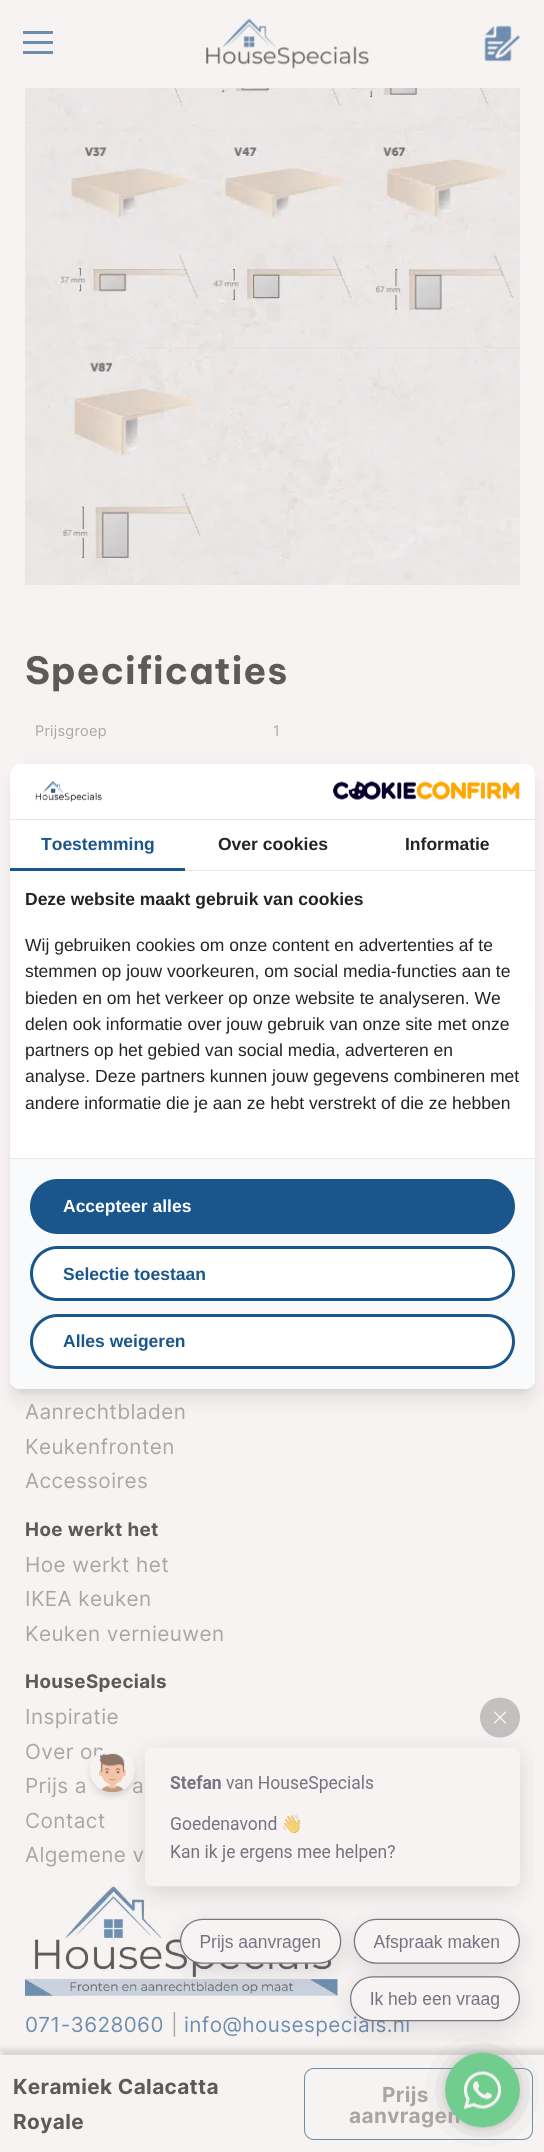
#include <cairo/cairo.h>
#include <math.h>
#include <stddef.h>


static void draw_spaced(cairo_t *cr, double x, double y, const char *s, double letter, double word) {
  cairo_move_to(cr, x, y);
  while (*s) {
    char ch[5] = {0};
    int n = 0;
    do ch[n++] = *s++; while ((*s & 0xC0) == 0x80);
    cairo_show_text(cr, ch);
    cairo_rel_move_to(cr, letter + word * (*ch == ' '), 0);
  }
}

static void rounded_rect(cairo_t *cr, double x, double y, double w, double h, double r) {
  cairo_new_sub_path(cr);
  cairo_arc(cr, x + w - r, y + h - r, r, 0, M_PI / 2);
  cairo_arc(cr, x + r, y + h - r, r, M_PI / 2, M_PI);
  cairo_arc(cr, x + r, y + r, r, M_PI, 1.5 * M_PI);
  cairo_arc(cr, x + w - r, y + r, r, 1.5 * M_PI, 2 * M_PI);
  cairo_close_path(cr);
}

static void draw_shadow(cairo_t *cr, double x, double y, double w, double h, double r, double blur, double alpha) {
  cairo_push_group_with_content(cr, CAIRO_CONTENT_ALPHA);
  cairo_set_operator(cr, CAIRO_OPERATOR_SOURCE);
  for (int i = 15; i >= -15 && fmin(w, h) + blur * i / 3 > 0; i -= 2) {
    double e = blur * i / 6;
    cairo_set_source_rgba(cr, 0, 0, 0, alpha * erfc((i - 1) / 8.5) / 2);
    rounded_rect(cr, x - e, y - e, w + 2 * e, h + 2 * e, fmax(0, fmin(r + e + blur * .6, fmin(w, h) / 2 + e)));
    cairo_fill(cr);
  }
  cairo_pattern_t *soft = cairo_pop_group(cr);
  cairo_mask(cr, soft);
  cairo_pattern_destroy(soft);
}

static void draw_image(cairo_t *cr, const char *path, double x, double y, double w, double h) {
  cairo_surface_t *image = cairo_image_surface_create_from_png(path);
  cairo_save(cr);
  cairo_set_source_surface(cr, image, x, y);
  cairo_rectangle(cr, x, y, w, h);
  cairo_fill(cr);
  cairo_restore(cr);
  cairo_surface_destroy(image);
}

static void draw(cairo_t *cr) {
  cairo_set_source_rgb(cr, 247 / 255.0, 243 / 255.0, 243 / 255.0);
  cairo_paint(cr);
  draw_image(cr, "images/1.png", 25, 88, 495, 497);
  cairo_set_source_rgb(cr, 243 / 255.0, 240 / 255.0, 240 / 255.0);
  cairo_rectangle(cr, 25, 753, 495, 11);
  cairo_fill(cr);
  cairo_rectangle(cr, 0, 995, 544, 1);
  cairo_fill(cr);
  draw_image(cr, "images/2.png", 25, 1886, 313, 111);
  cairo_set_source_rgb(cr, 110 / 255.0, 142 / 255.0, 174 / 255.0);
  cairo_rectangle(cr, 23, 31, 30, 3);
  cairo_fill(cr);
  cairo_rectangle(cr, 23, 41, 30, 3);
  cairo_fill(cr);
  cairo_rectangle(cr, 23, 51, 30, 3);
  cairo_fill(cr);
  draw_image(cr, "images/3.png", 206, 18, 164, 51);
  draw_image(cr, "images/4.png", 484, 25, 36, 37);
  cairo_set_source_rgb(cr, 94 / 255.0, 90 / 255.0, 90 / 255.0);
  draw_shadow(cr, 1, 2049, 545, 97, 0, 3, 0.2);
  cairo_set_source_rgb(cr, 247 / 255.0, 243 / 255.0, 243 / 255.0);
  cairo_rectangle(cr, 0, 2055, 544, 95);
  cairo_fill(cr);
  rounded_rect(cr, 304.5, 2068.5, 228, 71, 9.5);
  cairo_set_source_rgb(cr, 110 / 255.0, 142 / 255.0, 174 / 255.0);
  cairo_set_line_width(cr, 1);
  cairo_stroke(cr);
  cairo_set_source_rgb(cr, 0, 0, 0);
  draw_shadow(cr, 15, 774, 515, 615, 5, 4, 0.1);
  draw_shadow(cr, 14, 780, 517, 618, 6, 9.5, 0.1);
  cairo_set_source_rgb(cr, 1, 1, 1);
  rounded_rect(cr, 10, 764, 525, 625, 10);
  cairo_fill(cr);
  cairo_set_source_rgb(cr, 229 / 255.0, 231 / 255.0, 235 / 255.0);
  cairo_rectangle(cr, 10, 819, 525, 1);
  cairo_fill(cr);
  draw_image(cr, "images/5.png", 35, 780, 67, 22);
  draw_image(cr, "images/6.png", 333, 780, 187, 20);
  cairo_rectangle(cr, 185, 870, 350, 1);
  cairo_fill(cr);
  cairo_set_source_rgb(cr, 26 / 255.0, 86 / 255.0, 140 / 255.0);
  cairo_rectangle(cr, 10, 868, 175, 3);
  cairo_fill(cr);
  cairo_save(cr);
  rounded_rect(cr, 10, 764, 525, 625, 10);
  cairo_clip(cr);
  cairo_set_source_rgb(cr, 1, 1, 1);
  draw_shadow(cr, 0, 1123, 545, 251, 0, 12.5, 1);
  cairo_restore(cr);
  cairo_set_source_rgb(cr, 249 / 255.0, 250 / 255.0, 251 / 255.0);
  cairo_new_path(cr);
  cairo_move_to(cr, 10, 1158);
  cairo_line_to(cr, 535, 1158);
  cairo_line_to(cr, 535, 1379);
  cairo_curve_to(cr, 535, 1384.5, 530.5, 1389, 525, 1389);
  cairo_line_to(cr, 20, 1389);
  cairo_curve_to(cr, 14.5, 1389, 10, 1384.5, 10, 1379);
  cairo_close_path(cr);
  cairo_fill(cr);
  cairo_set_source_rgb(cr, 229 / 255.0, 231 / 255.0, 235 / 255.0);
  cairo_rectangle(cr, 10, 1158, 525, 1);
  cairo_fill(cr);
  cairo_set_source_rgb(cr, 26 / 255.0, 86 / 255.0, 140 / 255.0);
  rounded_rect(cr, 31.5, 1180.5, 482, 52, 26);
  cairo_fill_preserve(cr);
  cairo_set_line_width(cr, 3);
  cairo_stroke(cr);
  cairo_set_source_rgb(cr, 1, 1, 1);
  rounded_rect(cr, 31.5, 1247.5, 482, 52, 26);
  cairo_fill_preserve(cr);
  cairo_set_source_rgb(cr, 26 / 255.0, 86 / 255.0, 140 / 255.0);
  cairo_stroke(cr);
  cairo_set_source_rgb(cr, 1, 1, 1);
  rounded_rect(cr, 31.5, 1315.5, 482, 52, 26);
  cairo_fill_preserve(cr);
  cairo_set_source_rgb(cr, 26 / 255.0, 86 / 255.0, 140 / 255.0);
  cairo_stroke(cr);
  cairo_select_font_face(cr, "Be Vietnam Pro", CAIRO_FONT_SLANT_NORMAL, CAIRO_FONT_WEIGHT_BOLD);
  cairo_set_font_size(cr, 37.5);
  cairo_set_source_rgb(cr, 94 / 255.0, 90 / 255.0, 90 / 255.0);
  draw_spaced(cr, 25, 684, "Specificaties", 0.75, 0);
  cairo_select_font_face(cr, "Inter", CAIRO_FONT_SLANT_NORMAL, CAIRO_FONT_WEIGHT_NORMAL);
  cairo_set_font_size(cr, 14.5);
  cairo_set_source_rgb(cr, 170 / 255.0, 166 / 255.0, 166 / 255.0);
  draw_spaced(cr, 35, 736, "Prijsgroep", 0.25, 0);
  draw_spaced(cr, 273, 736, "1", 0.25, 0);
  cairo_set_font_size(cr, 20.75);
  draw_spaced(cr, 25, 1419, "Aanrechtbladen", 0.4, 0);
  draw_spaced(cr, 25, 1454, "Keukenfronten", 0.4, 0);
  draw_spaced(cr, 25, 1488, "Accessoires", 0.4, 0);
  cairo_select_font_face(cr, "Inter", CAIRO_FONT_SLANT_NORMAL, CAIRO_FONT_WEIGHT_BOLD);
  cairo_set_font_size(cr, 18.75);
  cairo_set_source_rgb(cr, 94 / 255.0, 90 / 255.0, 90 / 255.0);
  draw_spaced(cr, 25, 1536, "Hoe werkt het", 0.4, 0);
  cairo_select_font_face(cr, "Inter", CAIRO_FONT_SLANT_NORMAL, CAIRO_FONT_WEIGHT_NORMAL);
  cairo_set_font_size(cr, 20.75);
  cairo_set_source_rgb(cr, 170 / 255.0, 166 / 255.0, 166 / 255.0);
  draw_spaced(cr, 25, 1572, "Hoe werkt het", 0.4, 0);
  draw_spaced(cr, 25, 1606, "IKEA keuken", 0.4, 0);
  draw_spaced(cr, 25, 1641, "Keuken vernieuwen", 0.4, 0);
  cairo_select_font_face(cr, "Inter", CAIRO_FONT_SLANT_NORMAL, CAIRO_FONT_WEIGHT_BOLD);
  cairo_set_font_size(cr, 18.75);
  cairo_set_source_rgb(cr, 94 / 255.0, 90 / 255.0, 90 / 255.0);
  draw_spaced(cr, 25, 1688, "HouseSpecials", 0.4, 0);
  cairo_select_font_face(cr, "Inter", CAIRO_FONT_SLANT_NORMAL, CAIRO_FONT_WEIGHT_NORMAL);
  cairo_set_font_size(cr, 20.75);
  cairo_set_source_rgb(cr, 170 / 255.0, 166 / 255.0, 166 / 255.0);
  draw_spaced(cr, 25, 1724, "Inspiratie", 0.4, 0);
  draw_spaced(cr, 25, 1759, "Over on", 0.4, 0);
  draw_spaced(cr, 25, 1793, "Prijs a", 0.4, 0);
  draw_spaced(cr, 132, 1793, "a", 0.4, 0);
  draw_spaced(cr, 25, 1828, "Contact", 0.4, 0);
  draw_spaced(cr, 25, 1862, "Algemene v", 0.4, 0);
  cairo_set_source_rgb(cr, 110 / 255.0, 142 / 255.0, 174 / 255.0);
  draw_spaced(cr, 25, 2032, "071-3628060", 0.4, 0);
  cairo_set_source_rgb(cr, 170 / 255.0, 166 / 255.0, 166 / 255.0);
  draw_spaced(cr, 171, 2032, "|", 0.4, 0);
  cairo_set_source_rgb(cr, 110 / 255.0, 142 / 255.0, 174 / 255.0);
  draw_spaced(cr, 184, 2032, "info@housespecials.nl", 0.4, 0);
  cairo_select_font_face(cr, "Inter", CAIRO_FONT_SLANT_NORMAL, CAIRO_FONT_WEIGHT_BOLD);
  cairo_set_source_rgb(cr, 94 / 255.0, 90 / 255.0, 90 / 255.0);
  draw_spaced(cr, 13, 2094, "Keramiek Calacatta", 0.4, 0);
  draw_spaced(cr, 13, 2129, "Royale", 0.4, 0);
  cairo_set_source_rgb(cr, 170 / 255.0, 166 / 255.0, 166 / 255.0);
  draw_spaced(cr, 382, 2102, "Prijs", 0.4, 0);
  draw_spaced(cr, 349, 2123, "aanvragen", 0.4, 0);
  cairo_select_font_face(cr, "Liberation Sans", CAIRO_FONT_SLANT_NORMAL, CAIRO_FONT_WEIGHT_BOLD);
  cairo_set_font_size(cr, 17.5);
  cairo_set_source_rgb(cr, 26 / 255.0, 86 / 255.0, 140 / 255.0);
  cairo_move_to(cr, 41, 850);
  cairo_show_text(cr, "Toestemming");
  cairo_set_source_rgb(cr, 36 / 255.0, 36 / 255.0, 36 / 255.0);
  cairo_move_to(cr, 218, 850);
  cairo_show_text(cr, "Over cookies");
  cairo_move_to(cr, 405, 850);
  cairo_show_text(cr, "Informatie");
  cairo_move_to(cr, 25, 905);
  cairo_show_text(cr, "Deze website maakt gebruik van cookies");
  cairo_select_font_face(cr, "Liberation Sans", CAIRO_FONT_SLANT_NORMAL, CAIRO_FONT_WEIGHT_NORMAL);
  cairo_move_to(cr, 25, 951);
  cairo_show_text(cr, "Wij gebruiken cookies om onze content en advertenties af te");
  cairo_move_to(cr, 25, 977);
  cairo_show_text(cr, "stemmen op jouw voorkeuren, om social media-functies aan te");
  cairo_move_to(cr, 25, 1004);
  cairo_show_text(cr, "bieden en om het verkeer op onze website te analyseren. We");
  cairo_move_to(cr, 25, 1030);
  cairo_show_text(cr, "delen ook informatie over jouw gebruik van onze site met onze");
  cairo_move_to(cr, 25, 1056);
  cairo_show_text(cr, "partners op het gebied van social media, adverteren en");
  cairo_move_to(cr, 25, 1082);
  cairo_show_text(cr, "analyse. Deze partners kunnen jouw gegevens combineren met");
  cairo_move_to(cr, 25, 1109);
  cairo_show_text(cr, "andere informatie die je aan ze hebt verstrekt of die ze hebben");
  cairo_select_font_face(cr, "Liberation Sans", CAIRO_FONT_SLANT_NORMAL, CAIRO_FONT_WEIGHT_BOLD);
  cairo_set_source_rgb(cr, 1, 1, 1);
  cairo_move_to(cr, 63, 1212);
  cairo_show_text(cr, "Accepteer alles");
  cairo_set_source_rgb(cr, 26 / 255.0, 86 / 255.0, 140 / 255.0);
  cairo_move_to(cr, 63, 1280);
  cairo_show_text(cr, "Selectie toestaan");
  cairo_move_to(cr, 63, 1347);
  cairo_show_text(cr, "Alles weigeren");
  draw_image(cr, "images/8.png", 426, 2033, 113, 114);
  draw_image(cr, "images/7.png", 86, 1697, 448, 345);
}

int main(void) {
  cairo_surface_t *surface = cairo_image_surface_create(CAIRO_FORMAT_RGB24, 544, 2152);
  cairo_t *cr = cairo_create(surface);
  cairo_font_options_t *options = cairo_font_options_create();
  cairo_font_options_set_hint_metrics(options, CAIRO_HINT_METRICS_OFF);
  cairo_font_options_set_hint_style(options, CAIRO_HINT_STYLE_NONE);
  cairo_set_font_options(cr, options);
  cairo_set_miter_limit(cr, 4);
  draw(cr);
  cairo_surface_write_to_png(surface, "out.png");
  cairo_font_options_destroy(options);
  cairo_destroy(cr);
  cairo_surface_destroy(surface);
  return 0;
}
